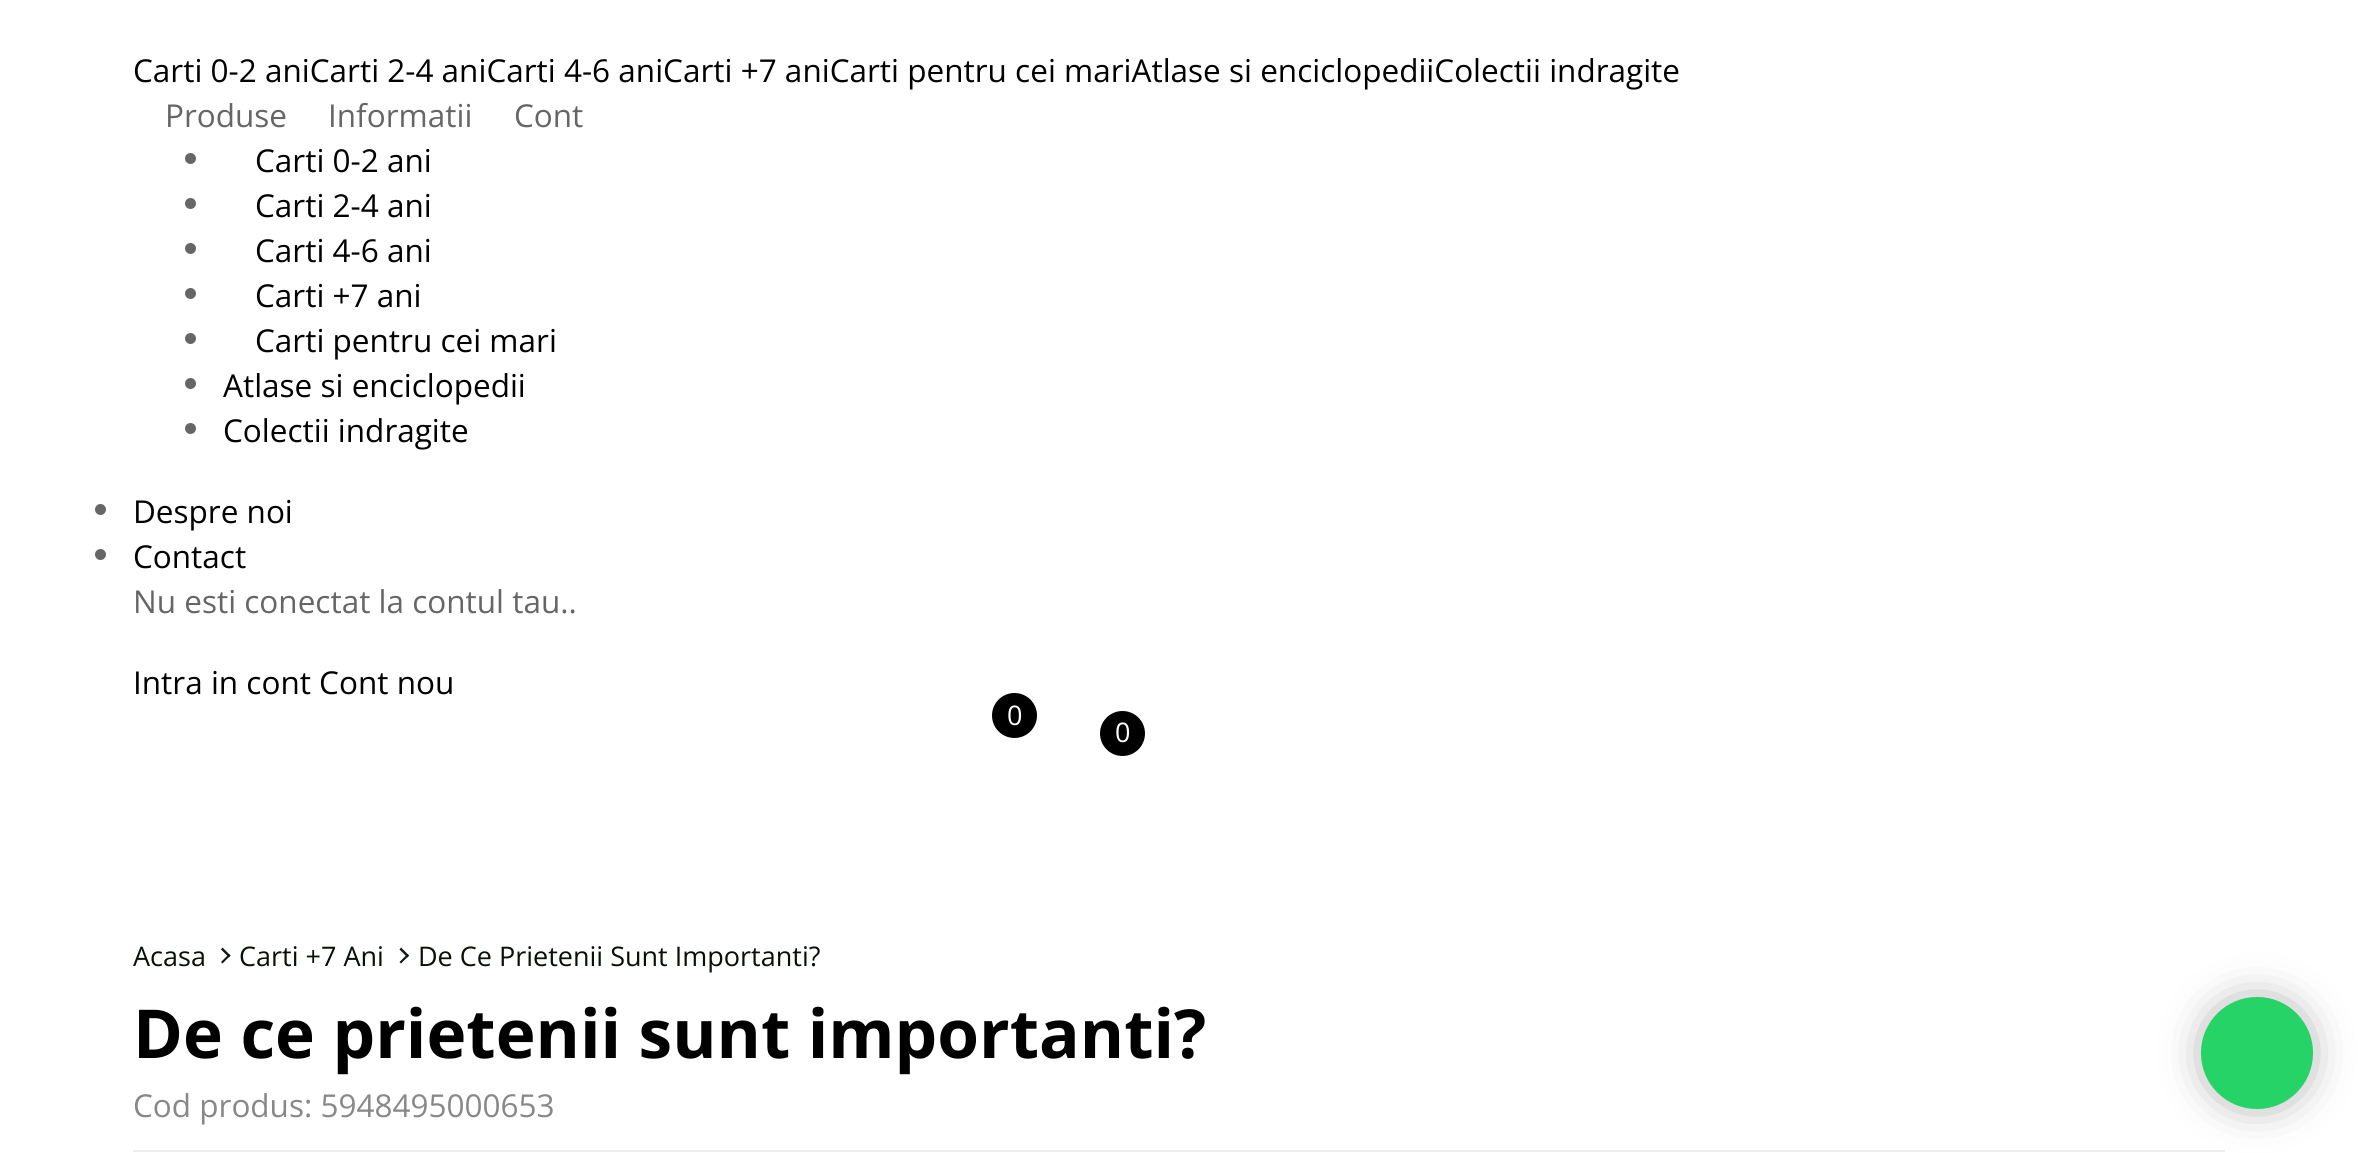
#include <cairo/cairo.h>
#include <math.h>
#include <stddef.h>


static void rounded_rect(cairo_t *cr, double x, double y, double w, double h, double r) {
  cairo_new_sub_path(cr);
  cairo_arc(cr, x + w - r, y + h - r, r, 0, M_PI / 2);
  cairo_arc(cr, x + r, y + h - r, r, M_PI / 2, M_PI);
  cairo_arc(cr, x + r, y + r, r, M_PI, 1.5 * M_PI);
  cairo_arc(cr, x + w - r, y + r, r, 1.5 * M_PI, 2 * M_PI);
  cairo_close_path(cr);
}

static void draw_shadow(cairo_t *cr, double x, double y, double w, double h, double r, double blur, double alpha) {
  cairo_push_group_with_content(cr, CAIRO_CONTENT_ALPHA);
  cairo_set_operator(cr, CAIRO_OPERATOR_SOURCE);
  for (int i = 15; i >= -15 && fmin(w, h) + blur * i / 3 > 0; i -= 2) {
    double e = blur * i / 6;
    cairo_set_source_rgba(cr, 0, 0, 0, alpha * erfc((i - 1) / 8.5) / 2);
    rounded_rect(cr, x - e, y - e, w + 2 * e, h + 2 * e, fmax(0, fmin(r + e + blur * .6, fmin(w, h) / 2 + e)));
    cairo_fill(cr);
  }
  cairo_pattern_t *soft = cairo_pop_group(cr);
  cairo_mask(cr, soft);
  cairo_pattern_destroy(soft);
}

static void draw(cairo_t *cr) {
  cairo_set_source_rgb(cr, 1, 1, 1);
  cairo_paint(cr);
  cairo_set_source_rgb(cr, 102 / 255.0, 102 / 255.0, 102 / 255.0);
  cairo_arc(cr, 190.5, 158.5, 5.5, 0, 2 * M_PI);
  cairo_fill(cr);
  cairo_arc(cr, 190.5, 203.5, 5.5, 0, 2 * M_PI);
  cairo_fill(cr);
  cairo_arc(cr, 190.5, 248.5, 5.5, 0, 2 * M_PI);
  cairo_fill(cr);
  cairo_arc(cr, 190.5, 293.5, 5.5, 0, 2 * M_PI);
  cairo_fill(cr);
  cairo_arc(cr, 190.5, 338.5, 5.5, 0, 2 * M_PI);
  cairo_fill(cr);
  cairo_arc(cr, 190.5, 383.5, 5.5, 0, 2 * M_PI);
  cairo_fill(cr);
  cairo_arc(cr, 190.5, 428.5, 5.5, 0, 2 * M_PI);
  cairo_fill(cr);
  cairo_arc(cr, 100.5, 509.5, 5.5, 0, 2 * M_PI);
  cairo_fill(cr);
  cairo_arc(cr, 100.5, 554.5, 5.5, 0, 2 * M_PI);
  cairo_fill(cr);
  cairo_set_source_rgb(cr, 0, 0, 0);
  cairo_arc(cr, 1014.5, 715.5, 22.5, 0, 2 * M_PI);
  cairo_fill(cr);
  cairo_arc(cr, 1122.5, 733.5, 22.5, 0, 2 * M_PI);
  cairo_fill(cr);
  cairo_set_source_rgb(cr, 18 / 255.0, 22 / 255.0, 24 / 255.0);
  cairo_new_path(cr);
  cairo_move_to(cr, 221, 949.5);
  cairo_line_to(cr, 222.5, 947.5);
  cairo_line_to(cr, 230.5, 955.5);
  cairo_line_to(cr, 229, 957.5);
  cairo_close_path(cr);
  cairo_fill(cr);
  cairo_new_path(cr);
  cairo_move_to(cr, 221, 962);
  cairo_line_to(cr, 229, 954);
  cairo_line_to(cr, 230.5, 955.5);
  cairo_line_to(cr, 222.5, 963.5);
  cairo_close_path(cr);
  cairo_fill(cr);
  cairo_new_path(cr);
  cairo_move_to(cr, 399.5, 949.5);
  cairo_line_to(cr, 401, 947.5);
  cairo_line_to(cr, 409, 955.5);
  cairo_line_to(cr, 407.5, 957.5);
  cairo_close_path(cr);
  cairo_fill(cr);
  cairo_new_path(cr);
  cairo_move_to(cr, 399.5, 962);
  cairo_line_to(cr, 407.5, 954);
  cairo_line_to(cr, 409, 955.5);
  cairo_line_to(cr, 401, 963.5);
  cairo_close_path(cr);
  cairo_fill(cr);
  cairo_set_source_rgb(cr, 238 / 255.0, 238 / 255.0, 238 / 255.0);
  cairo_rectangle(cr, 133, 1150, 2092, 2);
  cairo_fill(cr);
  cairo_set_source_rgb(cr, 0, 0, 0);
  draw_shadow(cr, 2212, 1008, 90, 90, 45, 22.5, 0.49);
  cairo_set_source_rgb(cr, 37 / 255.0, 211 / 255.0, 102 / 255.0);
  cairo_arc(cr, 2257, 1053, 56, 0, 2 * M_PI);
  cairo_fill(cr);
  cairo_select_font_face(cr, "Open Sans", CAIRO_FONT_SLANT_NORMAL, CAIRO_FONT_WEIGHT_NORMAL);
  cairo_set_font_size(cr, 31.5);
  cairo_set_source_rgb(cr, 0, 0, 0);
  cairo_move_to(cr, 133, 82);
  cairo_show_text(cr, "Carti 0-2 aniCarti 2-4 aniCarti 4-6 aniCarti +7 aniCarti pentru cei mariAtlase si enciclopediiColectii indragite");
  cairo_set_source_rgb(cr, 102 / 255.0, 102 / 255.0, 102 / 255.0);
  cairo_move_to(cr, 165, 127);
  cairo_show_text(cr, "Produse");
  cairo_move_to(cr, 328, 127);
  cairo_show_text(cr, "Informatii");
  cairo_move_to(cr, 514, 127);
  cairo_show_text(cr, "Cont");
  cairo_set_source_rgb(cr, 0, 0, 0);
  cairo_move_to(cr, 255, 172);
  cairo_show_text(cr, "Carti 0-2 ani");
  cairo_move_to(cr, 255, 217);
  cairo_show_text(cr, "Carti 2-4 ani");
  cairo_move_to(cr, 255, 262);
  cairo_show_text(cr, "Carti 4-6 ani");
  cairo_move_to(cr, 255, 307);
  cairo_show_text(cr, "Carti +7 ani");
  cairo_move_to(cr, 255, 352);
  cairo_show_text(cr, "Carti pentru cei mari");
  cairo_move_to(cr, 223, 397);
  cairo_show_text(cr, "Atlase si enciclopedii");
  cairo_move_to(cr, 223, 442);
  cairo_show_text(cr, "Colectii indragite");
  cairo_move_to(cr, 133, 523);
  cairo_show_text(cr, "Despre noi");
  cairo_move_to(cr, 133, 568);
  cairo_show_text(cr, "Contact");
  cairo_set_source_rgb(cr, 102 / 255.0, 102 / 255.0, 102 / 255.0);
  cairo_move_to(cr, 133, 613);
  cairo_show_text(cr, "Nu esti conectat la contul tau..");
  cairo_set_source_rgb(cr, 0, 0, 0);
  cairo_move_to(cr, 133, 694);
  cairo_show_text(cr, "Intra in cont Cont nou");
  cairo_set_font_size(cr, 27);
  cairo_set_source_rgb(cr, 1, 1, 1);
  cairo_move_to(cr, 1007, 725);
  cairo_show_text(cr, "0");
  cairo_move_to(cr, 1115, 742);
  cairo_show_text(cr, "0");
  cairo_set_source_rgb(cr, 9 / 255.0, 16 / 255.0, 9 / 255.0);
  cairo_move_to(cr, 133, 966);
  cairo_show_text(cr, "Acasa");
  cairo_move_to(cr, 239, 966);
  cairo_show_text(cr, "Carti +7 Ani");
  cairo_move_to(cr, 418, 966);
  cairo_show_text(cr, "De Ce Prietenii Sunt Importanti?");
  cairo_select_font_face(cr, "Open Sans", CAIRO_FONT_SLANT_NORMAL, CAIRO_FONT_WEIGHT_BOLD);
  cairo_set_font_size(cr, 67.5);
  cairo_set_source_rgb(cr, 0, 0, 0);
  cairo_move_to(cr, 133, 1058);
  cairo_show_text(cr, "De ce prietenii sunt importanti?");
  cairo_select_font_face(cr, "Open Sans", CAIRO_FONT_SLANT_NORMAL, CAIRO_FONT_WEIGHT_NORMAL);
  cairo_set_font_size(cr, 31.5);
  cairo_set_source_rgb(cr, 136 / 255.0, 136 / 255.0, 136 / 255.0);
  cairo_move_to(cr, 133, 1117);
  cairo_show_text(cr, "Cod produs: 5948495000653");
}

int main(void) {
  cairo_surface_t *surface = cairo_image_surface_create(CAIRO_FORMAT_RGB24, 2358, 1153);
  cairo_t *cr = cairo_create(surface);
  cairo_font_options_t *options = cairo_font_options_create();
  cairo_font_options_set_hint_metrics(options, CAIRO_HINT_METRICS_OFF);
  cairo_font_options_set_hint_style(options, CAIRO_HINT_STYLE_NONE);
  cairo_set_font_options(cr, options);
  cairo_set_miter_limit(cr, 4);
  draw(cr);
  cairo_surface_write_to_png(surface, "out.png");
  cairo_font_options_destroy(options);
  cairo_destroy(cr);
  cairo_surface_destroy(surface);
  return 0;
}
